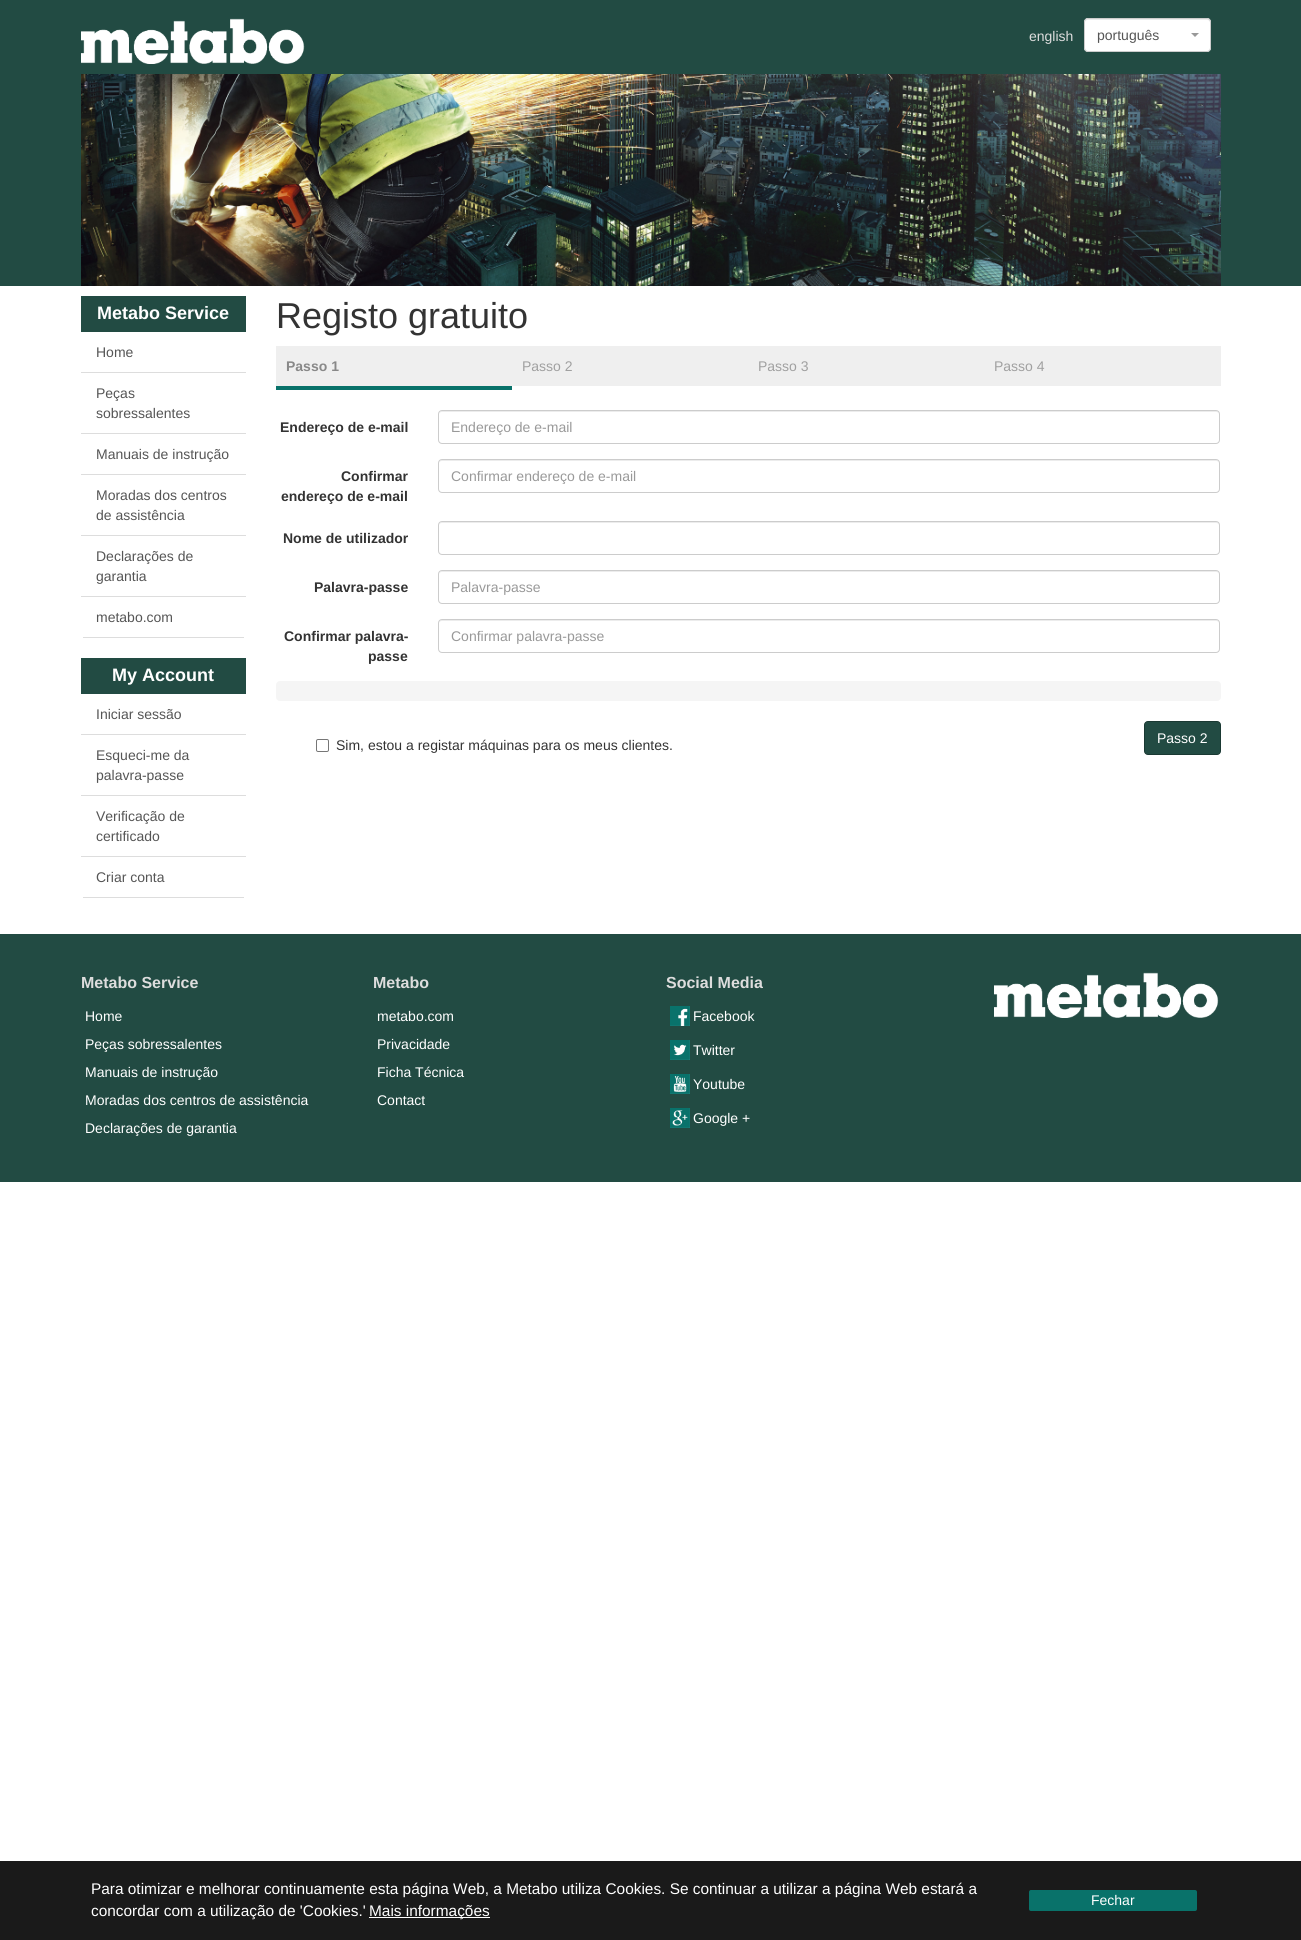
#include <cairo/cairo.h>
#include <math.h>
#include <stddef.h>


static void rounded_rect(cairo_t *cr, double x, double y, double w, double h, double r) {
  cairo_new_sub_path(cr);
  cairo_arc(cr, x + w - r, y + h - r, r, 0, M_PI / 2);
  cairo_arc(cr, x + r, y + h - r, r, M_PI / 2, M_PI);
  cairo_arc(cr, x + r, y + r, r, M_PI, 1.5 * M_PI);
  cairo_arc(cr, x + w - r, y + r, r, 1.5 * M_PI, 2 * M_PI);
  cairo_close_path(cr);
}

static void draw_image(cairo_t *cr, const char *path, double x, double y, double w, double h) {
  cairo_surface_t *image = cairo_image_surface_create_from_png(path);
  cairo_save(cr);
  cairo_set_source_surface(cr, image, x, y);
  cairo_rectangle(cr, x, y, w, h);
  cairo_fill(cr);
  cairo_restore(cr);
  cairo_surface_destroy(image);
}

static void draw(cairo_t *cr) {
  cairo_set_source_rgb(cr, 1, 1, 1);
  cairo_paint(cr);
  cairo_set_source_rgb(cr, 34 / 255.0, 75 / 255.0, 67 / 255.0);
  cairo_rectangle(cr, 0, 0, 1301, 286);
  cairo_fill(cr);
  draw_image(cr, "images/1.png", 81, 18, 224, 46);
  cairo_set_source_rgb(cr, 1, 1, 1);
  rounded_rect(cr, 1084, 18, 127, 34, 4);
  cairo_fill(cr);
  cairo_set_source_rgb(cr, 236 / 255.0, 236 / 255.0, 236 / 255.0);
  cairo_new_path(cr);
  cairo_move_to(cr, 1088, 20);
  cairo_line_to(cr, 1207, 20);
  cairo_curve_to(cr, 1209, 20, 1210, 21, 1210, 23);
  cairo_curve_to(cr, 1210, 21, 1210, 19, 1208, 19);
  cairo_line_to(cr, 1088, 19);
  cairo_curve_to(cr, 1086, 19, 1085, 21, 1085, 23);
  cairo_curve_to(cr, 1085, 21, 1086, 20, 1088, 20);
  cairo_close_path(cr);
  cairo_fill(cr);
  rounded_rect(cr, 1084.5, 18.5, 126, 33, 3.5);
  cairo_set_source_rgb(cr, 204 / 255.0, 204 / 255.0, 204 / 255.0);
  cairo_set_line_width(cr, 1);
  cairo_stroke(cr);
  cairo_set_source_rgb(cr, 153 / 255.0, 153 / 255.0, 153 / 255.0);
  cairo_new_path(cr);
  cairo_move_to(cr, 1191, 33);
  cairo_line_to(cr, 1199, 33);
  cairo_line_to(cr, 1195, 37);
  cairo_close_path(cr);
  cairo_fill(cr);
  draw_image(cr, "images/2.png", 81, 74, 1140, 212);
  cairo_set_source_rgb(cr, 34 / 255.0, 75 / 255.0, 67 / 255.0);
  cairo_rectangle(cr, 81, 296, 165, 36);
  cairo_fill(cr);
  cairo_set_source_rgb(cr, 221 / 255.0, 221 / 255.0, 221 / 255.0);
  cairo_rectangle(cr, 81, 372, 165, 1);
  cairo_fill(cr);
  cairo_rectangle(cr, 81, 433, 165, 1);
  cairo_fill(cr);
  cairo_rectangle(cr, 81, 474, 165, 1);
  cairo_fill(cr);
  cairo_rectangle(cr, 81, 535, 165, 1);
  cairo_fill(cr);
  cairo_rectangle(cr, 81, 596, 165, 1);
  cairo_fill(cr);
  cairo_rectangle(cr, 83, 637, 161, 1);
  cairo_fill(cr);
  cairo_set_source_rgb(cr, 34 / 255.0, 75 / 255.0, 67 / 255.0);
  cairo_rectangle(cr, 81, 658, 165, 36);
  cairo_fill(cr);
  cairo_set_source_rgb(cr, 221 / 255.0, 221 / 255.0, 221 / 255.0);
  cairo_rectangle(cr, 81, 734, 165, 1);
  cairo_fill(cr);
  cairo_rectangle(cr, 81, 795, 165, 1);
  cairo_fill(cr);
  cairo_rectangle(cr, 81, 856, 165, 1);
  cairo_fill(cr);
  cairo_rectangle(cr, 83, 897, 161, 1);
  cairo_fill(cr);
  cairo_set_source_rgb(cr, 239 / 255.0, 239 / 255.0, 239 / 255.0);
  cairo_rectangle(cr, 276, 346, 945, 40);
  cairo_fill(cr);
  cairo_set_source_rgb(cr, 9 / 255.0, 114 / 255.0, 106 / 255.0);
  cairo_rectangle(cr, 276, 386, 236, 4);
  cairo_fill(cr);
  cairo_set_source_rgb(cr, 236 / 255.0, 236 / 255.0, 236 / 255.0);
  cairo_new_path(cr);
  cairo_move_to(cr, 442, 412);
  cairo_line_to(cr, 1216, 412);
  cairo_curve_to(cr, 1218, 412, 1219, 413, 1219, 415);
  cairo_curve_to(cr, 1219, 413, 1218, 411, 1216, 411);
  cairo_line_to(cr, 442, 411);
  cairo_curve_to(cr, 440, 411, 439, 413, 439, 415);
  cairo_curve_to(cr, 439, 413, 440, 412, 442, 412);
  cairo_close_path(cr);
  cairo_fill(cr);
  rounded_rect(cr, 438.5, 410.5, 781, 33, 3.5);
  cairo_set_source_rgb(cr, 204 / 255.0, 204 / 255.0, 204 / 255.0);
  cairo_stroke(cr);
  cairo_set_source_rgb(cr, 236 / 255.0, 236 / 255.0, 236 / 255.0);
  cairo_new_path(cr);
  cairo_move_to(cr, 442, 461);
  cairo_line_to(cr, 1216, 461);
  cairo_curve_to(cr, 1218, 461, 1219, 462, 1219, 464);
  cairo_curve_to(cr, 1219, 462, 1218, 460, 1216, 460);
  cairo_line_to(cr, 442, 460);
  cairo_curve_to(cr, 440, 460, 439, 462, 439, 464);
  cairo_curve_to(cr, 439, 462, 440, 461, 442, 461);
  cairo_close_path(cr);
  cairo_fill(cr);
  rounded_rect(cr, 438.5, 459.5, 781, 33, 3.5);
  cairo_set_source_rgb(cr, 204 / 255.0, 204 / 255.0, 204 / 255.0);
  cairo_stroke(cr);
  cairo_set_source_rgb(cr, 236 / 255.0, 236 / 255.0, 236 / 255.0);
  cairo_new_path(cr);
  cairo_move_to(cr, 442, 523);
  cairo_line_to(cr, 1216, 523);
  cairo_curve_to(cr, 1218, 523, 1219, 524, 1219, 526);
  cairo_curve_to(cr, 1219, 524, 1218, 522, 1216, 522);
  cairo_line_to(cr, 442, 522);
  cairo_curve_to(cr, 440, 522, 439, 524, 439, 526);
  cairo_curve_to(cr, 439, 524, 440, 523, 442, 523);
  cairo_close_path(cr);
  cairo_fill(cr);
  rounded_rect(cr, 438.5, 521.5, 781, 33, 3.5);
  cairo_set_source_rgb(cr, 204 / 255.0, 204 / 255.0, 204 / 255.0);
  cairo_stroke(cr);
  cairo_set_source_rgb(cr, 236 / 255.0, 236 / 255.0, 236 / 255.0);
  cairo_new_path(cr);
  cairo_move_to(cr, 442, 572);
  cairo_line_to(cr, 1216, 572);
  cairo_curve_to(cr, 1218, 572, 1219, 573, 1219, 575);
  cairo_curve_to(cr, 1219, 573, 1218, 571, 1216, 571);
  cairo_line_to(cr, 442, 571);
  cairo_curve_to(cr, 440, 571, 439, 573, 439, 575);
  cairo_curve_to(cr, 439, 573, 440, 572, 442, 572);
  cairo_close_path(cr);
  cairo_fill(cr);
  rounded_rect(cr, 438.5, 570.5, 781, 33, 3.5);
  cairo_set_source_rgb(cr, 204 / 255.0, 204 / 255.0, 204 / 255.0);
  cairo_stroke(cr);
  cairo_set_source_rgb(cr, 236 / 255.0, 236 / 255.0, 236 / 255.0);
  cairo_new_path(cr);
  cairo_move_to(cr, 442, 621);
  cairo_line_to(cr, 1216, 621);
  cairo_curve_to(cr, 1218, 621, 1219, 622, 1219, 624);
  cairo_curve_to(cr, 1219, 622, 1218, 620, 1216, 620);
  cairo_line_to(cr, 442, 620);
  cairo_curve_to(cr, 440, 620, 439, 622, 439, 624);
  cairo_curve_to(cr, 439, 622, 440, 621, 442, 621);
  cairo_close_path(cr);
  cairo_fill(cr);
  rounded_rect(cr, 438.5, 619.5, 781, 33, 3.5);
  cairo_set_source_rgb(cr, 204 / 255.0, 204 / 255.0, 204 / 255.0);
  cairo_stroke(cr);
  cairo_set_source_rgb(cr, 245 / 255.0, 245 / 255.0, 245 / 255.0);
  rounded_rect(cr, 276, 681, 945, 20, 4);
  cairo_fill(cr);
  rounded_rect(cr, 316.5, 739.5, 12, 12, 1.5);
  cairo_set_source_rgb(cr, 118 / 255.0, 118 / 255.0, 118 / 255.0);
  cairo_stroke(cr);
  cairo_set_source_rgb(cr, 34 / 255.0, 75 / 255.0, 67 / 255.0);
  rounded_rect(cr, 1144.5, 721.5, 76, 33, 3.5);
  cairo_fill_preserve(cr);
  cairo_set_source_rgb(cr, 26 / 255.0, 57 / 255.0, 51 / 255.0);
  cairo_stroke(cr);
  cairo_set_source_rgb(cr, 34 / 255.0, 75 / 255.0, 67 / 255.0);
  cairo_rectangle(cr, 0, 934, 1301, 248);
  cairo_fill(cr);
  draw_image(cr, "images/3.png", 670, 1006, 20, 20);
  draw_image(cr, "images/4.png", 670, 1040, 20, 20);
  draw_image(cr, "images/5.png", 670, 1074, 20, 20);
  draw_image(cr, "images/6.png", 670, 1108, 20, 20);
  draw_image(cr, "images/7.png", 994, 972, 225, 46);
  cairo_set_source_rgb(cr, 26 / 255.0, 26 / 255.0, 26 / 255.0);
  cairo_rectangle(cr, 0, 1861, 1301, 79);
  cairo_fill(cr);
  cairo_set_source_rgb(cr, 1, 1, 1);
  cairo_rectangle(cr, 369, 1917, 121, 1);
  cairo_fill(cr);
  cairo_set_source_rgb(cr, 9 / 255.0, 114 / 255.0, 106 / 255.0);
  rounded_rect(cr, 1029, 1890, 168, 21, 2);
  cairo_fill(cr);
  cairo_select_font_face(cr, "Liberation Sans", CAIRO_FONT_SLANT_NORMAL, CAIRO_FONT_WEIGHT_NORMAL);
  cairo_set_font_size(cr, 14);
  cairo_set_source_rgb(cr, 221 / 255.0, 221 / 255.0, 221 / 255.0);
  cairo_move_to(cr, 1029, 41);
  cairo_show_text(cr, "english");
  cairo_set_source_rgb(cr, 85 / 255.0, 85 / 255.0, 85 / 255.0);
  cairo_move_to(cr, 1097, 40);
  cairo_show_text(cr, "português");
  cairo_select_font_face(cr, "Liberation Sans", CAIRO_FONT_SLANT_NORMAL, CAIRO_FONT_WEIGHT_BOLD);
  cairo_set_font_size(cr, 18);
  cairo_set_source_rgb(cr, 1, 1, 1);
  cairo_move_to(cr, 97, 319);
  cairo_show_text(cr, "Metabo Service");
  cairo_select_font_face(cr, "Liberation Sans", CAIRO_FONT_SLANT_NORMAL, CAIRO_FONT_WEIGHT_NORMAL);
  cairo_set_font_size(cr, 14);
  cairo_set_source_rgb(cr, 85 / 255.0, 85 / 255.0, 85 / 255.0);
  cairo_move_to(cr, 96, 357);
  cairo_show_text(cr, "Home");
  cairo_move_to(cr, 96, 398);
  cairo_show_text(cr, "Peças");
  cairo_move_to(cr, 96, 418);
  cairo_show_text(cr, "sobressalentes");
  cairo_move_to(cr, 96, 459);
  cairo_show_text(cr, "Manuais de instrução");
  cairo_move_to(cr, 96, 500);
  cairo_show_text(cr, "Moradas dos centros");
  cairo_move_to(cr, 96, 520);
  cairo_show_text(cr, "de assistência");
  cairo_move_to(cr, 96, 561);
  cairo_show_text(cr, "Declarações de");
  cairo_move_to(cr, 96, 581);
  cairo_show_text(cr, "garantia");
  cairo_move_to(cr, 96, 622);
  cairo_show_text(cr, "metabo.com");
  cairo_select_font_face(cr, "Liberation Sans", CAIRO_FONT_SLANT_NORMAL, CAIRO_FONT_WEIGHT_BOLD);
  cairo_set_font_size(cr, 18);
  cairo_set_source_rgb(cr, 1, 1, 1);
  cairo_move_to(cr, 112, 681);
  cairo_show_text(cr, "My Account");
  cairo_select_font_face(cr, "Liberation Sans", CAIRO_FONT_SLANT_NORMAL, CAIRO_FONT_WEIGHT_NORMAL);
  cairo_set_font_size(cr, 14);
  cairo_set_source_rgb(cr, 85 / 255.0, 85 / 255.0, 85 / 255.0);
  cairo_move_to(cr, 96, 719);
  cairo_show_text(cr, "Iniciar sessão");
  cairo_move_to(cr, 96, 760);
  cairo_show_text(cr, "Esqueci-me da");
  cairo_move_to(cr, 96, 780);
  cairo_show_text(cr, "palavra-passe");
  cairo_move_to(cr, 96, 821);
  cairo_show_text(cr, "Verificação de");
  cairo_move_to(cr, 96, 841);
  cairo_show_text(cr, "certificado");
  cairo_move_to(cr, 96, 882);
  cairo_show_text(cr, "Criar conta");
  cairo_set_font_size(cr, 36);
  cairo_set_source_rgb(cr, 51 / 255.0, 51 / 255.0, 51 / 255.0);
  cairo_move_to(cr, 276, 328);
  cairo_show_text(cr, "Registo gratuito");
  cairo_select_font_face(cr, "Liberation Sans", CAIRO_FONT_SLANT_NORMAL, CAIRO_FONT_WEIGHT_BOLD);
  cairo_set_font_size(cr, 14);
  cairo_set_source_rgb(cr, 136 / 255.0, 136 / 255.0, 136 / 255.0);
  cairo_move_to(cr, 286, 371);
  cairo_show_text(cr, "Passo 1");
  cairo_select_font_face(cr, "Liberation Sans", CAIRO_FONT_SLANT_NORMAL, CAIRO_FONT_WEIGHT_NORMAL);
  cairo_set_source_rgb(cr, 160 / 255.0, 160 / 255.0, 160 / 255.0);
  cairo_move_to(cr, 522, 371);
  cairo_show_text(cr, "Passo 2");
  cairo_move_to(cr, 758, 371);
  cairo_show_text(cr, "Passo 3");
  cairo_move_to(cr, 994, 371);
  cairo_show_text(cr, "Passo 4");
  cairo_select_font_face(cr, "Liberation Sans", CAIRO_FONT_SLANT_NORMAL, CAIRO_FONT_WEIGHT_BOLD);
  cairo_set_source_rgb(cr, 51 / 255.0, 51 / 255.0, 51 / 255.0);
  cairo_move_to(cr, 280, 432);
  cairo_show_text(cr, "Endereço de e-mail");
  cairo_select_font_face(cr, "Liberation Sans", CAIRO_FONT_SLANT_NORMAL, CAIRO_FONT_WEIGHT_NORMAL);
  cairo_set_source_rgb(cr, 153 / 255.0, 153 / 255.0, 153 / 255.0);
  cairo_move_to(cr, 451, 432);
  cairo_show_text(cr, "Endereço de e-mail");
  cairo_select_font_face(cr, "Liberation Sans", CAIRO_FONT_SLANT_NORMAL, CAIRO_FONT_WEIGHT_BOLD);
  cairo_set_source_rgb(cr, 51 / 255.0, 51 / 255.0, 51 / 255.0);
  cairo_move_to(cr, 341, 481);
  cairo_show_text(cr, "Confirmar");
  cairo_move_to(cr, 281, 501);
  cairo_show_text(cr, "endereço de e-mail");
  cairo_select_font_face(cr, "Liberation Sans", CAIRO_FONT_SLANT_NORMAL, CAIRO_FONT_WEIGHT_NORMAL);
  cairo_set_source_rgb(cr, 153 / 255.0, 153 / 255.0, 153 / 255.0);
  cairo_move_to(cr, 451, 481);
  cairo_show_text(cr, "Confirmar endereço de e-mail");
  cairo_select_font_face(cr, "Liberation Sans", CAIRO_FONT_SLANT_NORMAL, CAIRO_FONT_WEIGHT_BOLD);
  cairo_set_source_rgb(cr, 51 / 255.0, 51 / 255.0, 51 / 255.0);
  cairo_move_to(cr, 283, 543);
  cairo_show_text(cr, "Nome de utilizador");
  cairo_move_to(cr, 314, 592);
  cairo_show_text(cr, "Palavra-passe");
  cairo_select_font_face(cr, "Liberation Sans", CAIRO_FONT_SLANT_NORMAL, CAIRO_FONT_WEIGHT_NORMAL);
  cairo_set_source_rgb(cr, 153 / 255.0, 153 / 255.0, 153 / 255.0);
  cairo_move_to(cr, 451, 592);
  cairo_show_text(cr, "Palavra-passe");
  cairo_select_font_face(cr, "Liberation Sans", CAIRO_FONT_SLANT_NORMAL, CAIRO_FONT_WEIGHT_BOLD);
  cairo_set_source_rgb(cr, 51 / 255.0, 51 / 255.0, 51 / 255.0);
  cairo_move_to(cr, 284, 641);
  cairo_show_text(cr, "Confirmar palavra-");
  cairo_move_to(cr, 368, 661);
  cairo_show_text(cr, "passe");
  cairo_select_font_face(cr, "Liberation Sans", CAIRO_FONT_SLANT_NORMAL, CAIRO_FONT_WEIGHT_NORMAL);
  cairo_set_source_rgb(cr, 153 / 255.0, 153 / 255.0, 153 / 255.0);
  cairo_move_to(cr, 451, 641);
  cairo_show_text(cr, "Confirmar palavra-passe");
  cairo_set_source_rgb(cr, 51 / 255.0, 51 / 255.0, 51 / 255.0);
  cairo_move_to(cr, 336, 750);
  cairo_show_text(cr, "Sim, estou a registar máquinas para os meus clientes.");
  cairo_set_source_rgb(cr, 1, 1, 1);
  cairo_move_to(cr, 1157, 743);
  cairo_show_text(cr, "Passo 2");
  cairo_select_font_face(cr, "Liberation Sans", CAIRO_FONT_SLANT_NORMAL, CAIRO_FONT_WEIGHT_BOLD);
  cairo_set_font_size(cr, 16);
  cairo_set_source_rgb(cr, 221 / 255.0, 221 / 255.0, 221 / 255.0);
  cairo_move_to(cr, 81, 988);
  cairo_show_text(cr, "Metabo Service");
  cairo_select_font_face(cr, "Liberation Sans", CAIRO_FONT_SLANT_NORMAL, CAIRO_FONT_WEIGHT_NORMAL);
  cairo_set_font_size(cr, 14);
  cairo_set_source_rgb(cr, 1, 1, 1);
  cairo_move_to(cr, 85, 1021);
  cairo_show_text(cr, "Home");
  cairo_move_to(cr, 85, 1049);
  cairo_show_text(cr, "Peças sobressalentes");
  cairo_move_to(cr, 85, 1077);
  cairo_show_text(cr, "Manuais de instrução");
  cairo_move_to(cr, 85, 1105);
  cairo_show_text(cr, "Moradas dos centros de assistência");
  cairo_move_to(cr, 85, 1133);
  cairo_show_text(cr, "Declarações de garantia");
  cairo_select_font_face(cr, "Liberation Sans", CAIRO_FONT_SLANT_NORMAL, CAIRO_FONT_WEIGHT_BOLD);
  cairo_set_font_size(cr, 16);
  cairo_set_source_rgb(cr, 221 / 255.0, 221 / 255.0, 221 / 255.0);
  cairo_move_to(cr, 373, 988);
  cairo_show_text(cr, "Metabo");
  cairo_select_font_face(cr, "Liberation Sans", CAIRO_FONT_SLANT_NORMAL, CAIRO_FONT_WEIGHT_NORMAL);
  cairo_set_font_size(cr, 14);
  cairo_set_source_rgb(cr, 1, 1, 1);
  cairo_move_to(cr, 377, 1021);
  cairo_show_text(cr, "metabo.com");
  cairo_move_to(cr, 377, 1049);
  cairo_show_text(cr, "Privacidade");
  cairo_move_to(cr, 377, 1077);
  cairo_show_text(cr, "Ficha Técnica");
  cairo_move_to(cr, 377, 1105);
  cairo_show_text(cr, "Contact");
  cairo_select_font_face(cr, "Liberation Sans", CAIRO_FONT_SLANT_NORMAL, CAIRO_FONT_WEIGHT_BOLD);
  cairo_set_font_size(cr, 16);
  cairo_set_source_rgb(cr, 221 / 255.0, 221 / 255.0, 221 / 255.0);
  cairo_move_to(cr, 666, 988);
  cairo_show_text(cr, "Social Media");
  cairo_select_font_face(cr, "Liberation Sans", CAIRO_FONT_SLANT_NORMAL, CAIRO_FONT_WEIGHT_NORMAL);
  cairo_set_font_size(cr, 14);
  cairo_set_source_rgb(cr, 1, 1, 1);
  cairo_move_to(cr, 693, 1021);
  cairo_show_text(cr, "Facebook");
  cairo_move_to(cr, 693, 1055);
  cairo_show_text(cr, "Twitter");
  cairo_move_to(cr, 693, 1089);
  cairo_show_text(cr, "Youtube");
  cairo_move_to(cr, 693, 1123);
  cairo_show_text(cr, "Google +");
  cairo_set_font_size(cr, 15.4);
  cairo_move_to(cr, 91, 1894);
  cairo_show_text(cr, "Para otimizar e melhorar continuamente esta página Web, a Metabo utiliza Cookies. Se continuar a utilizar a página Web estará a");
  cairo_move_to(cr, 91, 1916);
  cairo_show_text(cr, "concordar com a utilização de 'Cookies.'");
  cairo_move_to(cr, 369, 1916);
  cairo_show_text(cr, "Mais informações");
  cairo_set_font_size(cr, 14);
  cairo_move_to(cr, 1091, 1905);
  cairo_show_text(cr, "Fechar");
}

int main(void) {
  cairo_surface_t *surface = cairo_image_surface_create(CAIRO_FORMAT_RGB24, 1301, 1940);
  cairo_t *cr = cairo_create(surface);
  cairo_font_options_t *options = cairo_font_options_create();
  cairo_font_options_set_hint_metrics(options, CAIRO_HINT_METRICS_OFF);
  cairo_font_options_set_hint_style(options, CAIRO_HINT_STYLE_NONE);
  cairo_set_font_options(cr, options);
  cairo_set_miter_limit(cr, 4);
  draw(cr);
  cairo_surface_write_to_png(surface, "out.png");
  cairo_font_options_destroy(options);
  cairo_destroy(cr);
  cairo_surface_destroy(surface);
  return 0;
}
